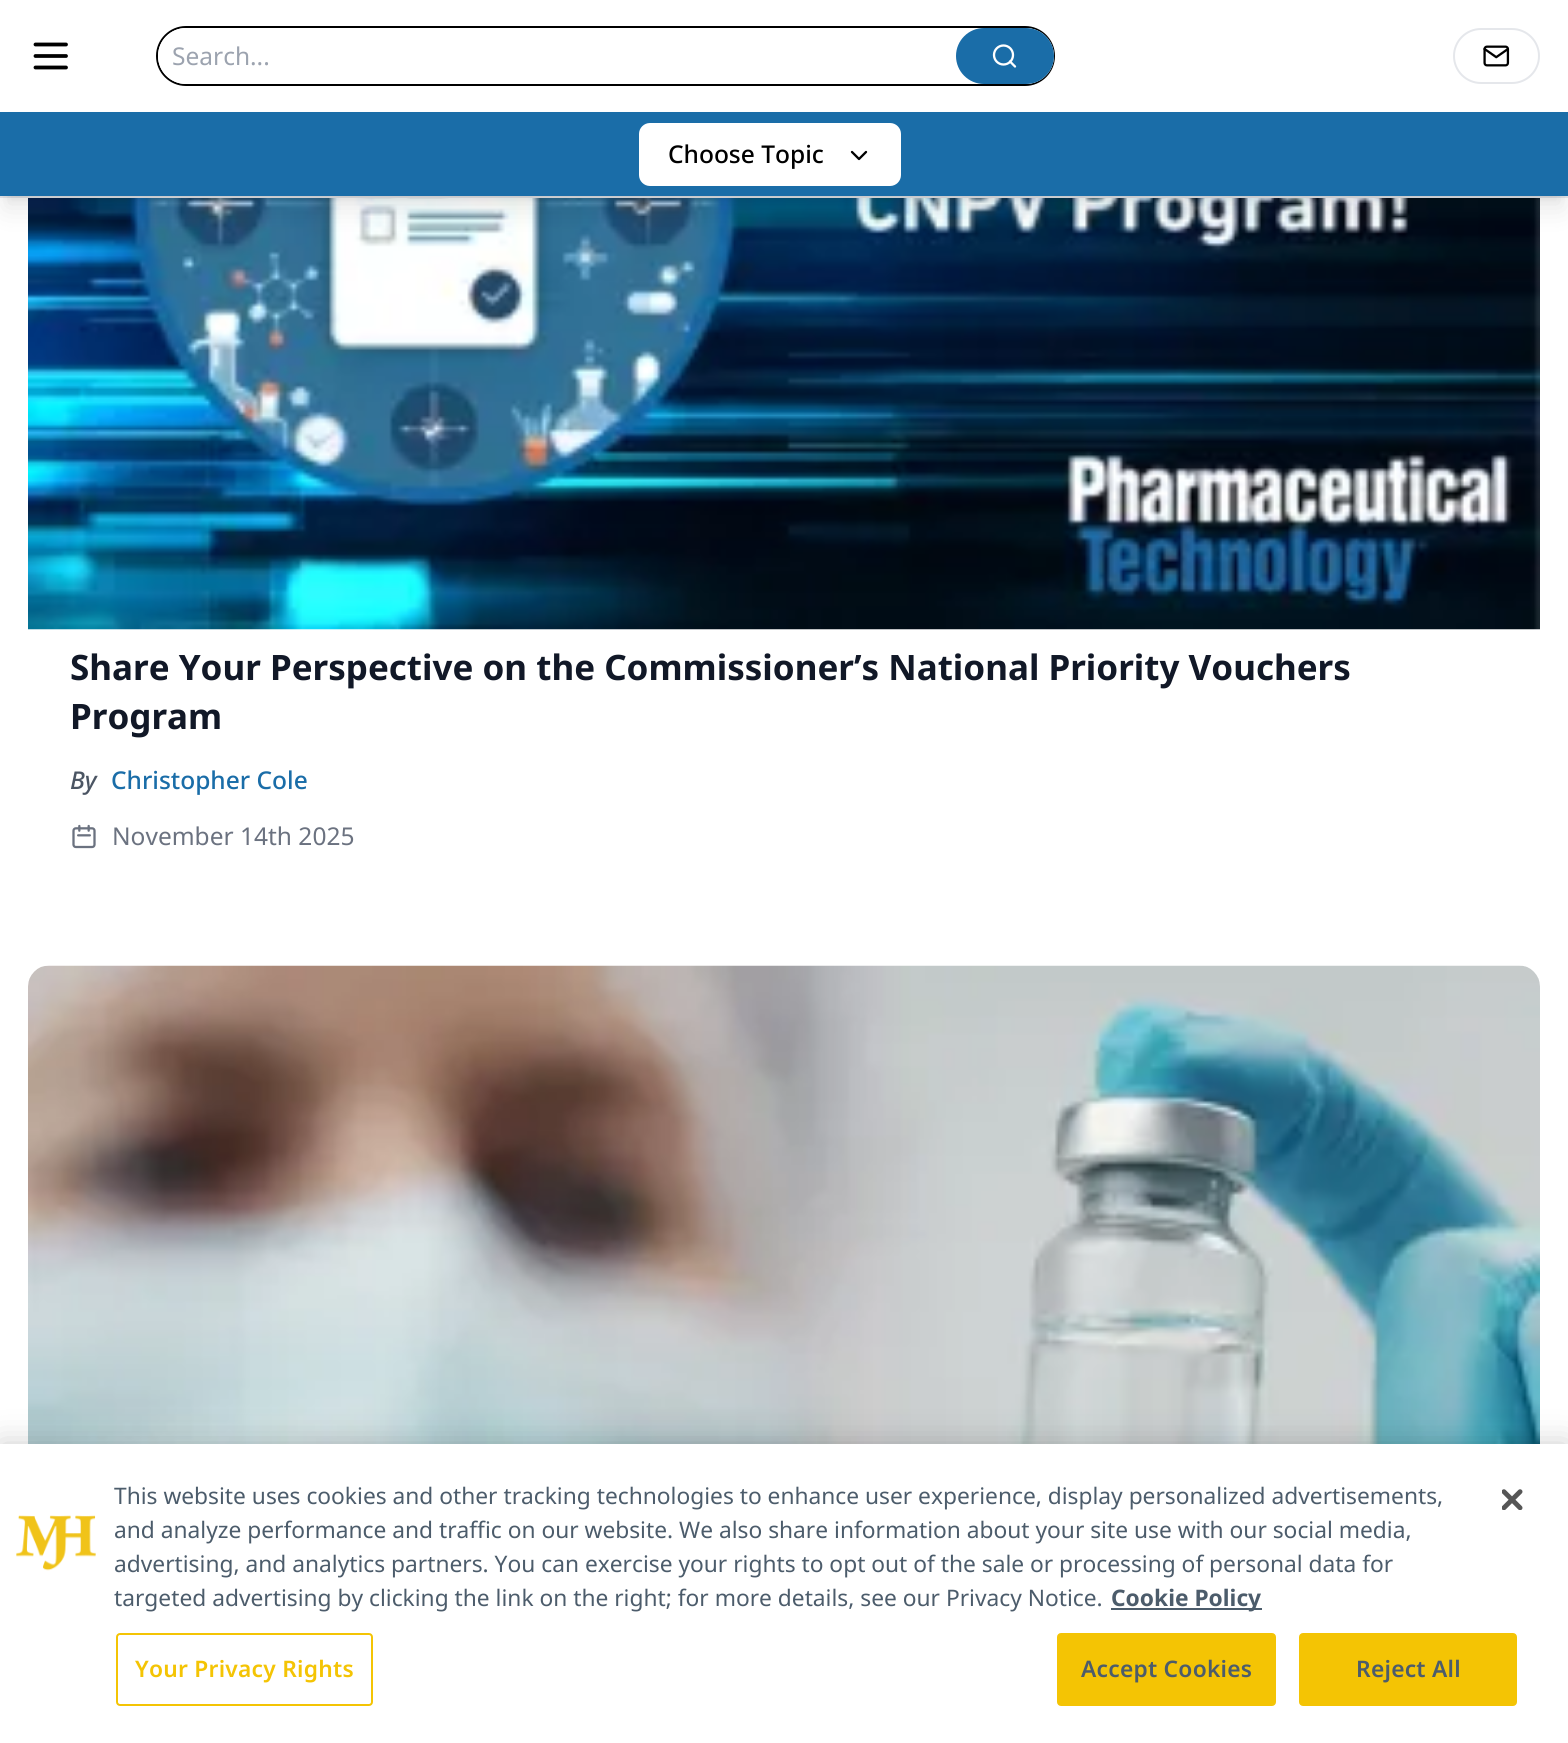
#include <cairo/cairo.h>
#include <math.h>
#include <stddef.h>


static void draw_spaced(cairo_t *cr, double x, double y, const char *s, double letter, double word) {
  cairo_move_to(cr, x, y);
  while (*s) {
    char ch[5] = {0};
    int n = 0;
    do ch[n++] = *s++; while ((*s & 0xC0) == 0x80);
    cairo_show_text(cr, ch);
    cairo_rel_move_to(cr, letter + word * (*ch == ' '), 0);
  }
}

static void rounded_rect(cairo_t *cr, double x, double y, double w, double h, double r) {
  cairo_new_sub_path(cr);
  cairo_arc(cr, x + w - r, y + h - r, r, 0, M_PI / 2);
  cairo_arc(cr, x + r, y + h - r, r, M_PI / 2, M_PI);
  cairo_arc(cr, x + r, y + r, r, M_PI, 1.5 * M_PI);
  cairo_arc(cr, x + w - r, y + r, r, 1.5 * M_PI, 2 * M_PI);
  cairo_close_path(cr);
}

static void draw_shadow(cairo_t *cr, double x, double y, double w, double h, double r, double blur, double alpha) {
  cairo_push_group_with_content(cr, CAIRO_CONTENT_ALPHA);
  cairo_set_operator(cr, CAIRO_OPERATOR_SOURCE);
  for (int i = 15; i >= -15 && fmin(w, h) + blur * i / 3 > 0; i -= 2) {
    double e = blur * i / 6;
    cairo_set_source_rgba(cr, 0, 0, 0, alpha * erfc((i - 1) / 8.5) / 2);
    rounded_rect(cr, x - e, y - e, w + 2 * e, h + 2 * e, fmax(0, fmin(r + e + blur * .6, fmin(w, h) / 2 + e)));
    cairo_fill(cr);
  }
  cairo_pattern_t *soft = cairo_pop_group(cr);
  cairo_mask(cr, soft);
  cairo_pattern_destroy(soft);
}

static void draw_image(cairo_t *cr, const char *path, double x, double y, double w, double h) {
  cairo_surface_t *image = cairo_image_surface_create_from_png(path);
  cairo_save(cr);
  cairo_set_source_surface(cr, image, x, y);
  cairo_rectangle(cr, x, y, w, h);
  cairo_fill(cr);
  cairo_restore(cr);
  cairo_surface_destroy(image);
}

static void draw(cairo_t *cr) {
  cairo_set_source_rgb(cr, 1, 1, 1);
  cairo_paint(cr);
  cairo_set_source_rgb(cr, 229 / 255.0, 231 / 255.0, 235 / 255.0);
  cairo_rectangle(cr, 0, 196, 1568, 2);
  cairo_fill(cr);
  cairo_new_path(cr);
  cairo_move_to(cr, 35.5, 44.5);
  cairo_line_to(cr, 66, 44.5);
  cairo_move_to(cr, 35.5, 56);
  cairo_line_to(cr, 66, 56);
  cairo_move_to(cr, 35.5, 67.5);
  cairo_line_to(cr, 66, 67.5);
  cairo_set_source_rgb(cr, 0, 0, 0);
  cairo_set_line_width(cr, 3.8);
  cairo_set_line_cap(cr, CAIRO_LINE_CAP_ROUND);
  cairo_set_line_join(cr, CAIRO_LINE_JOIN_ROUND);
  cairo_stroke(cr);
  rounded_rect(cr, 157, 27, 897, 58, 29);
  cairo_set_line_width(cr, 2);
  cairo_set_line_cap(cr, CAIRO_LINE_CAP_BUTT);
  cairo_set_line_join(cr, CAIRO_LINE_JOIN_MITER);
  cairo_stroke(cr);
  cairo_set_source_rgb(cr, 1, 1, 1);
  rounded_rect(cr, 158, 28, 896, 56, 28);
  cairo_fill(cr);
  cairo_set_source_rgb(cr, 26 / 255.0, 109 / 255.0, 168 / 255.0);
  rounded_rect(cr, 956, 28, 98, 56, 28);
  cairo_fill(cr);
  cairo_arc(cr, 1003.5, 55, 9.5, 0, 2 * M_PI);
  cairo_set_source_rgb(cr, 1, 1, 1);
  cairo_set_line_width(cr, 2.3);
  cairo_stroke(cr);
  cairo_new_path(cr);
  cairo_move_to(cr, 1015, 66.5);
  cairo_line_to(cr, 1010, 61.5);
  cairo_set_line_cap(cr, CAIRO_LINE_CAP_ROUND);
  cairo_set_line_join(cr, CAIRO_LINE_JOIN_ROUND);
  cairo_stroke(cr);
  rounded_rect(cr, 1454, 29, 85, 54, 27);
  cairo_set_source_rgb(cr, 229 / 255.0, 231 / 255.0, 235 / 255.0);
  cairo_set_line_width(cr, 2);
  cairo_set_line_cap(cr, CAIRO_LINE_CAP_BUTT);
  cairo_set_line_join(cr, CAIRO_LINE_JOIN_MITER);
  cairo_stroke(cr);
  draw_image(cr, "images/1.png", 1483, 45, 27, 22);
  draw_image(cr, "images/2.png", 28, 198, 1512, 432);
  cairo_set_source_rgb(cr, 0, 0, 0);
  draw_shadow(cr, 7, 126, 1554, 70, 0, 5, 0.1);
  draw_shadow(cr, 5, 135, 1558, 73, 0, 13, 0.1);
  cairo_set_source_rgb(cr, 26 / 255.0, 109 / 255.0, 168 / 255.0);
  cairo_rectangle(cr, 0, 112, 1568, 84);
  cairo_fill(cr);
  cairo_set_source_rgb(cr, 1, 1, 1);
  rounded_rect(cr, 639, 123, 262, 63, 11);
  cairo_fill(cr);
  cairo_new_path(cr);
  cairo_move_to(cr, 852, 152);
  cairo_line_to(cr, 859, 159);
  cairo_line_to(cr, 866, 152);
  cairo_set_source_rgb(cr, 0, 0, 0);
  cairo_set_line_width(cr, 2.3);
  cairo_set_line_cap(cr, CAIRO_LINE_CAP_ROUND);
  cairo_set_line_join(cr, CAIRO_LINE_JOIN_ROUND);
  cairo_stroke(cr);
  draw_image(cr, "images/3.png", 72, 824, 24, 25);
  draw_image(cr, "images/4.png", 28, 965, 1512, 479);
  cairo_set_source_rgb(cr, 0, 0, 0);
  draw_shadow(cr, 0, 1444, 1568, 299, 0, 16, 0.2);
  cairo_set_source_rgb(cr, 1, 1, 1);
  cairo_rectangle(cr, 0, 1444, 1568, 299);
  cairo_fill(cr);
  draw_image(cr, "images/5.png", 16, 1515, 80, 56);
  cairo_set_source_rgb(cr, 76 / 255.0, 92 / 255.0, 107 / 255.0);
  cairo_rectangle(cr, 1111, 1608, 151, 2);
  cairo_fill(cr);
  rounded_rect(cr, 117, 1634, 255, 71, 3);
  cairo_set_source_rgb(cr, 244 / 255.0, 196 / 255.0, 4 / 255.0);
  cairo_set_line_width(cr, 2);
  cairo_set_line_cap(cr, CAIRO_LINE_CAP_BUTT);
  cairo_set_line_join(cr, CAIRO_LINE_JOIN_MITER);
  cairo_stroke(cr);
  rounded_rect(cr, 1058, 1634, 217, 71, 3);
  cairo_fill_preserve(cr);
  cairo_stroke(cr);
  rounded_rect(cr, 1300, 1634, 216, 71, 3);
  cairo_fill_preserve(cr);
  cairo_stroke(cr);
  draw_image(cr, "images/6.png", 1502, 1489, 21, 21);
  cairo_select_font_face(cr, "Noto Sans", CAIRO_FONT_SLANT_NORMAL, CAIRO_FONT_WEIGHT_NORMAL);
  cairo_set_font_size(cr, 24.5);
  cairo_set_source_rgb(cr, 156 / 255.0, 163 / 255.0, 175 / 255.0);
  cairo_move_to(cr, 172, 65);
  cairo_show_text(cr, "Search...");
  cairo_select_font_face(cr, "Noto Sans Medium", CAIRO_FONT_SLANT_NORMAL, CAIRO_FONT_WEIGHT_NORMAL);
  cairo_set_source_rgb(cr, 0, 0, 0);
  cairo_move_to(cr, 668, 163);
  cairo_show_text(cr, "Choose Topic");
  cairo_select_font_face(cr, "Noto Sans", CAIRO_FONT_SLANT_NORMAL, CAIRO_FONT_WEIGHT_BOLD);
  cairo_set_font_size(cr, 35);
  cairo_set_source_rgb(cr, 17 / 255.0, 24 / 255.0, 39 / 255.0);
  cairo_move_to(cr, 70, 680);
  cairo_show_text(cr, "Share Your Perspective on the Commissioner’s National Priority Vouchers");
  cairo_move_to(cr, 70, 729);
  cairo_show_text(cr, "Program");
  cairo_select_font_face(cr, "Noto Sans Medium", CAIRO_FONT_SLANT_ITALIC, CAIRO_FONT_WEIGHT_NORMAL);
  cairo_set_font_size(cr, 24.5);
  cairo_set_source_rgb(cr, 75 / 255.0, 85 / 255.0, 99 / 255.0);
  cairo_move_to(cr, 70, 789);
  cairo_show_text(cr, "By");
  cairo_select_font_face(cr, "Noto Sans Medium", CAIRO_FONT_SLANT_NORMAL, CAIRO_FONT_WEIGHT_NORMAL);
  cairo_set_source_rgb(cr, 26 / 255.0, 109 / 255.0, 168 / 255.0);
  cairo_move_to(cr, 111, 789);
  cairo_show_text(cr, "Christopher Cole");
  cairo_select_font_face(cr, "Noto Sans", CAIRO_FONT_SLANT_NORMAL, CAIRO_FONT_WEIGHT_NORMAL);
  cairo_set_source_rgb(cr, 107 / 255.0, 114 / 255.0, 128 / 255.0);
  cairo_move_to(cr, 112, 845);
  cairo_show_text(cr, "November 14th 2025");
  cairo_set_font_size(cr, 22.75);
  cairo_set_source_rgb(cr, 76 / 255.0, 92 / 255.0, 107 / 255.0);
  cairo_move_to(cr, 114, 1504);
  cairo_show_text(cr, "This website uses cookies and other tracking technologies to enhance user experience, display personalized advertisements,");
  cairo_move_to(cr, 114, 1538);
  cairo_show_text(cr, "and analyze performance and traffic on our website. We also share information about your site use with our social media,");
  cairo_move_to(cr, 114, 1572);
  cairo_show_text(cr, "advertising, and analytics partners. You can exercise your rights to opt out of the sale or processing of personal data for");
  cairo_move_to(cr, 114, 1606);
  cairo_show_text(cr, "targeted advertising by clicking the link on the right; for more details, see our Privacy Notice.");
  cairo_select_font_face(cr, "Noto Sans", CAIRO_FONT_SLANT_NORMAL, CAIRO_FONT_WEIGHT_BOLD);
  cairo_move_to(cr, 1111, 1606);
  cairo_show_text(cr, "Cookie Policy");
  cairo_select_font_face(cr, "Noto Sans SemiBold", CAIRO_FONT_SLANT_NORMAL, CAIRO_FONT_WEIGHT_NORMAL);
  cairo_set_source_rgb(cr, 244 / 255.0, 196 / 255.0, 4 / 255.0);
  draw_spaced(cr, 135, 1677, "Your Privacy Rights", 0.25, 0);
  cairo_set_source_rgb(cr, 76 / 255.0, 92 / 255.0, 107 / 255.0);
  draw_spaced(cr, 1081, 1677, "Accept Cookies", 0.25, 0);
  draw_spaced(cr, 1356, 1677, "Reject All", 0.25, 0);
}

int main(void) {
  cairo_surface_t *surface = cairo_image_surface_create(CAIRO_FORMAT_RGB24, 1568, 1743);
  cairo_t *cr = cairo_create(surface);
  cairo_font_options_t *options = cairo_font_options_create();
  cairo_font_options_set_hint_metrics(options, CAIRO_HINT_METRICS_OFF);
  cairo_font_options_set_hint_style(options, CAIRO_HINT_STYLE_NONE);
  cairo_set_font_options(cr, options);
  cairo_set_miter_limit(cr, 4);
  draw(cr);
  cairo_surface_write_to_png(surface, "out.png");
  cairo_font_options_destroy(options);
  cairo_destroy(cr);
  cairo_surface_destroy(surface);
  return 0;
}
